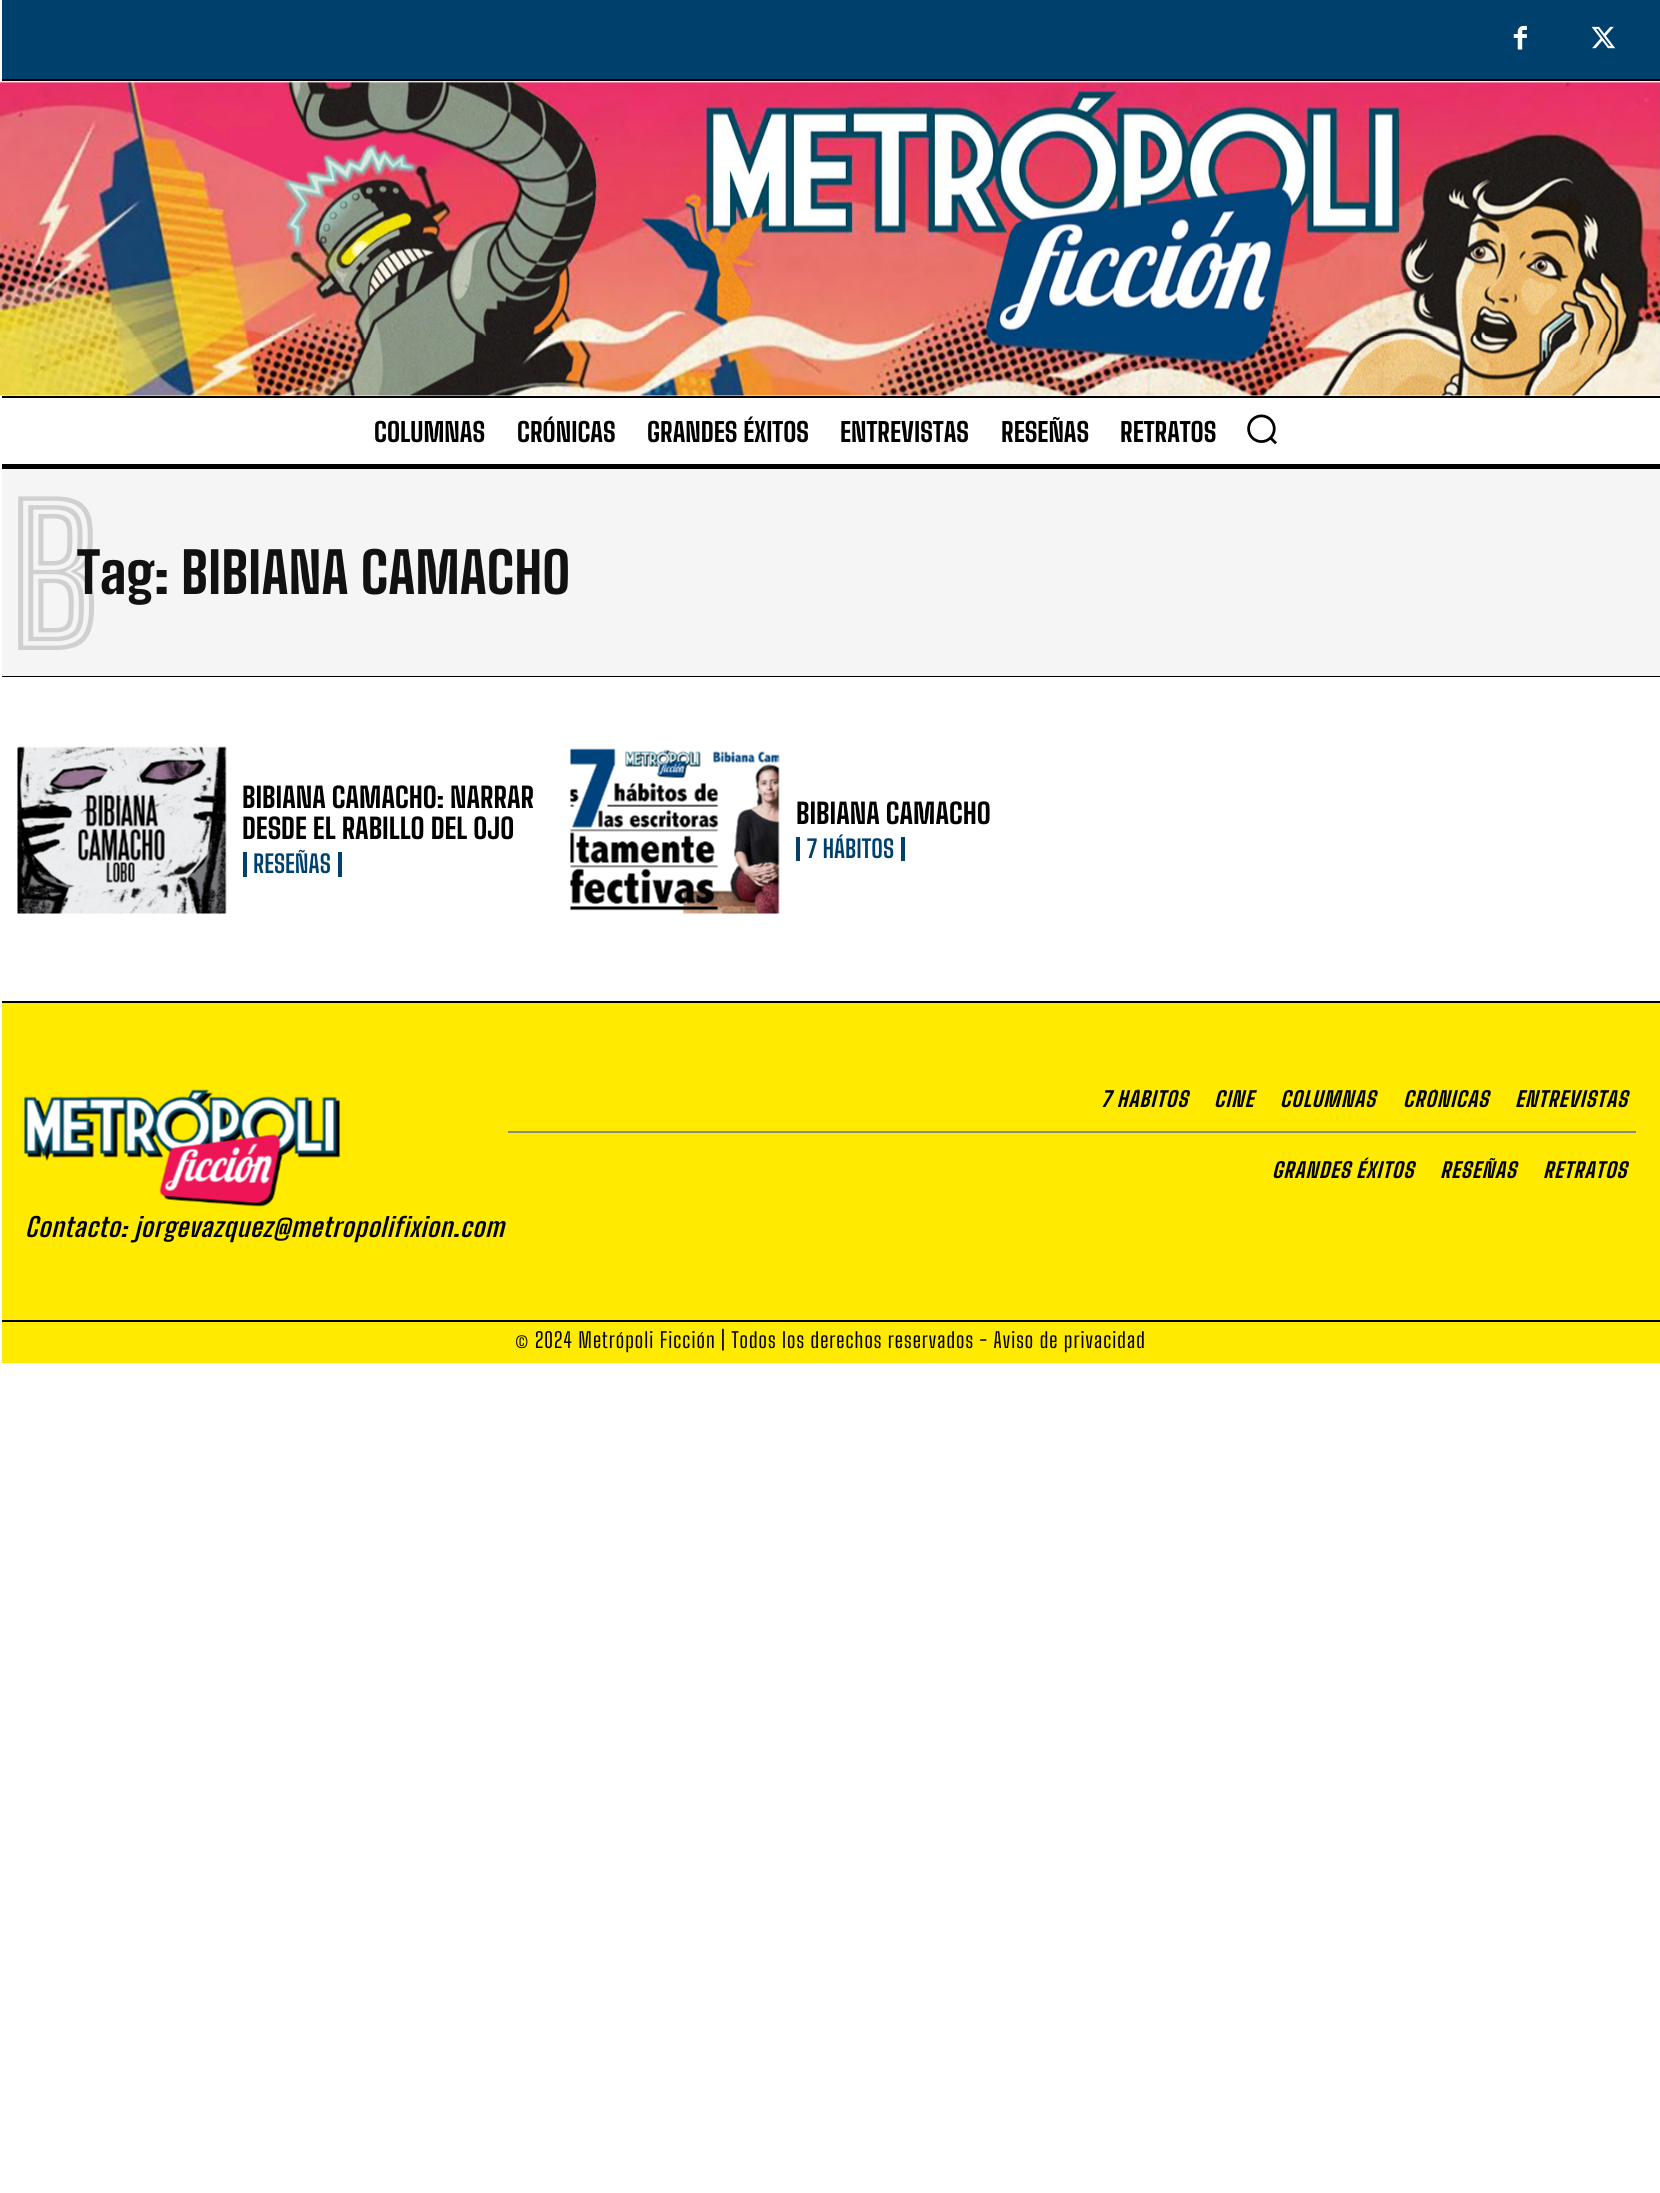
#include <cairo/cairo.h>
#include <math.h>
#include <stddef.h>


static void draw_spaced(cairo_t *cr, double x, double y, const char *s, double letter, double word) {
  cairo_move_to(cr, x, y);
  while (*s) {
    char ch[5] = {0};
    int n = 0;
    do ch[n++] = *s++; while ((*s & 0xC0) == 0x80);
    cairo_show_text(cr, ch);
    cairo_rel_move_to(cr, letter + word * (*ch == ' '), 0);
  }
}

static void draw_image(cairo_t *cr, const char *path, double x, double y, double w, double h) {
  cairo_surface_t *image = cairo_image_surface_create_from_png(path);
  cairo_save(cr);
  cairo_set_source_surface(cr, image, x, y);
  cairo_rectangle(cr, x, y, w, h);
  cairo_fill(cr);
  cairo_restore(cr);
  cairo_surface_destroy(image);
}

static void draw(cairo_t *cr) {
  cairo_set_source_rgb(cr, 1, 1, 1);
  cairo_paint(cr);
  cairo_set_source_rgb(cr, 0, 64 / 255.0, 108 / 255.0);
  cairo_rectangle(cr, 2, 0, 1658, 79);
  cairo_fill(cr);
  cairo_set_source_rgb(cr, 0, 0, 0);
  cairo_rectangle(cr, 2, 79, 1658, 2);
  cairo_fill(cr);
  draw_image(cr, "images/1.png", 1513, 25, 14, 25);
  draw_image(cr, "images/2.png", 1591, 26, 25, 23);
  draw_image(cr, "images/3.png", 0, 81, 1660, 315);
  cairo_rectangle(cr, 2, 396, 1658, 2);
  cairo_fill(cr);
  cairo_rectangle(cr, 2, 464, 1658, 5);
  cairo_fill(cr);
  draw_image(cr, "images/4.png", 1247, 414, 30, 31);
  cairo_set_source_rgb(cr, 245 / 255.0, 245 / 255.0, 245 / 255.0);
  cairo_rectangle(cr, 2, 469, 1658, 207);
  cairo_fill(cr);
  cairo_set_source_rgb(cr, 0, 0, 0);
  cairo_rectangle(cr, 2, 676, 1658, 1);
  cairo_fill(cr);
  draw_image(cr, "images/5.png", 17, 746, 210, 168);
  cairo_set_source_rgb(cr, 0, 64 / 255.0, 108 / 255.0);
  cairo_rectangle(cr, 338, 852, 4, 25);
  cairo_fill(cr);
  cairo_rectangle(cr, 243, 852, 4, 25);
  cairo_fill(cr);
  draw_image(cr, "images/6.png", 570, 748, 210, 166);
  cairo_rectangle(cr, 901, 837, 4, 24);
  cairo_fill(cr);
  cairo_rectangle(cr, 796, 837, 4, 24);
  cairo_fill(cr);
  cairo_set_source_rgb(cr, 1, 234 / 255.0, 0);
  cairo_rectangle(cr, 2, 1003, 1658, 317);
  cairo_fill(cr);
  cairo_set_source_rgb(cr, 0, 0, 0);
  cairo_rectangle(cr, 2, 1001, 1658, 2);
  cairo_fill(cr);
  cairo_set_source_rgb(cr, 136 / 255.0, 136 / 255.0, 136 / 255.0);
  cairo_rectangle(cr, 508, 1131, 1128, 2);
  cairo_fill(cr);
  draw_image(cr, "images/7.png", 24, 1089, 316, 118);
  cairo_set_source_rgb(cr, 1, 234 / 255.0, 0);
  cairo_rectangle(cr, 2, 1322, 1658, 41);
  cairo_fill(cr);
  cairo_set_source_rgb(cr, 0, 0, 0);
  cairo_rectangle(cr, 2, 1320, 1658, 2);
  cairo_fill(cr);
  cairo_select_font_face(cr, "Big Shoulders Text ExtraBold", CAIRO_FONT_SLANT_NORMAL, CAIRO_FONT_WEIGHT_NORMAL);
  cairo_set_font_size(cr, 26.25);
  cairo_move_to(cr, 374, 442);
  cairo_show_text(cr, "COLUMNAS");
  cairo_move_to(cr, 517, 442);
  cairo_show_text(cr, "CRÓNICAS");
  cairo_move_to(cr, 647, 442);
  cairo_show_text(cr, "GRANDES ÉXITOS");
  cairo_move_to(cr, 840, 442);
  cairo_show_text(cr, "ENTREVISTAS");
  cairo_move_to(cr, 1001, 442);
  cairo_show_text(cr, "RESEÑAS");
  cairo_move_to(cr, 1120, 442);
  cairo_show_text(cr, "RETRATOS");
  cairo_select_font_face(cr, "Big Shoulders Inline Text ExtraBold", CAIRO_FONT_SLANT_NORMAL, CAIRO_FONT_WEIGHT_NORMAL);
  cairo_set_font_size(cr, 192);
  cairo_set_source_rgb(cr, 208 / 255.0, 208 / 255.0, 208 / 255.0);
  cairo_move_to(cr, 8, 650);
  cairo_show_text(cr, "B");
  cairo_select_font_face(cr, "Big Shoulders Text ExtraBold", CAIRO_FONT_SLANT_NORMAL, CAIRO_FONT_WEIGHT_NORMAL);
  cairo_set_font_size(cr, 56);
  cairo_set_source_rgb(cr, 17 / 255.0, 17 / 255.0, 17 / 255.0);
  cairo_move_to(cr, 77, 594);
  cairo_show_text(cr, "Tag: BIBIANA CAMACHO");
  cairo_set_font_size(cr, 28);
  cairo_set_source_rgb(cr, 0, 0, 0);
  cairo_move_to(cr, 242, 808);
  cairo_show_text(cr, "BIBIANA CAMACHO: NARRAR");
  cairo_move_to(cr, 242, 839);
  cairo_show_text(cr, "DESDE EL RABILLO DEL OJO");
  cairo_select_font_face(cr, "Big Shoulders Text", CAIRO_FONT_SLANT_NORMAL, CAIRO_FONT_WEIGHT_BOLD);
  cairo_set_font_size(cr, 24.5);
  cairo_set_source_rgb(cr, 0, 64 / 255.0, 108 / 255.0);
  cairo_move_to(cr, 253, 873);
  cairo_show_text(cr, "RESEÑAS");
  cairo_select_font_face(cr, "Big Shoulders Text ExtraBold", CAIRO_FONT_SLANT_NORMAL, CAIRO_FONT_WEIGHT_NORMAL);
  cairo_set_font_size(cr, 28);
  cairo_set_source_rgb(cr, 0, 0, 0);
  cairo_move_to(cr, 796, 824);
  cairo_show_text(cr, "BIBIANA CAMACHO");
  cairo_select_font_face(cr, "Big Shoulders Text", CAIRO_FONT_SLANT_NORMAL, CAIRO_FONT_WEIGHT_BOLD);
  cairo_set_font_size(cr, 24.5);
  cairo_set_source_rgb(cr, 0, 64 / 255.0, 108 / 255.0);
  cairo_move_to(cr, 807, 858);
  cairo_show_text(cr, "7 HÁBITOS");
  cairo_save(cr);
  cairo_rectangle(cr, 508, 1089, 1128, 42);
  cairo_clip(cr);
  cairo_select_font_face(cr, "Big Shoulders Text ExtraBold", CAIRO_FONT_SLANT_ITALIC, CAIRO_FONT_WEIGHT_NORMAL);
  cairo_set_font_size(cr, 21);
  cairo_set_source_rgb(cr, 0, 0, 0);
  draw_spaced(cr, 1101, 1107, "7 HÁBITOS", 0.9, 0);
  cairo_restore(cr);
  cairo_select_font_face(cr, "Big Shoulders Text ExtraBold", CAIRO_FONT_SLANT_ITALIC, CAIRO_FONT_WEIGHT_NORMAL);
  cairo_set_font_size(cr, 21);
  cairo_set_source_rgb(cr, 0, 0, 0);
  draw_spaced(cr, 1214, 1107, "CINE", 0.9, 0);
  draw_spaced(cr, 1280, 1107, "COLUMNAS", 0.9, 0);
  cairo_save(cr);
  cairo_rectangle(cr, 508, 1089, 1128, 42);
  cairo_clip(cr);
  draw_spaced(cr, 1403, 1107, "CRÓNICAS", 0.9, 0);
  cairo_restore(cr);
  draw_spaced(cr, 1515, 1107, "ENTREVISTAS", 0.9, 0);
  draw_spaced(cr, 1272, 1178, "GRANDES ÉXITOS", 0.9, 0);
  draw_spaced(cr, 1440, 1178, "RESEÑAS", 0.9, 0);
  draw_spaced(cr, 1543, 1178, "RETRATOS", 0.9, 0);
  cairo_select_font_face(cr, "Big Shoulders Text", CAIRO_FONT_SLANT_ITALIC, CAIRO_FONT_WEIGHT_BOLD);
  cairo_set_font_size(cr, 26.25);
  draw_spaced(cr, 25, 1237, "Contacto: jorgevazquez@metropolifixion.com", 0.9, 0);
  cairo_select_font_face(cr, "Big Shoulders Text", CAIRO_FONT_SLANT_NORMAL, CAIRO_FONT_WEIGHT_NORMAL);
  cairo_set_font_size(cr, 21);
  draw_spaced(cr, 515, 1348, "© 2024 Metrópoli Ficción | Todos los derechos reservados - Aviso de privacidad", 1.05, 0);
}

int main(void) {
  cairo_surface_t *surface = cairo_image_surface_create(CAIRO_FORMAT_RGB24, 1660, 2193);
  cairo_t *cr = cairo_create(surface);
  cairo_font_options_t *options = cairo_font_options_create();
  cairo_font_options_set_hint_metrics(options, CAIRO_HINT_METRICS_OFF);
  cairo_font_options_set_hint_style(options, CAIRO_HINT_STYLE_NONE);
  cairo_set_font_options(cr, options);
  cairo_set_miter_limit(cr, 4);
  draw(cr);
  cairo_surface_write_to_png(surface, "out.png");
  cairo_font_options_destroy(options);
  cairo_destroy(cr);
  cairo_surface_destroy(surface);
  return 0;
}
